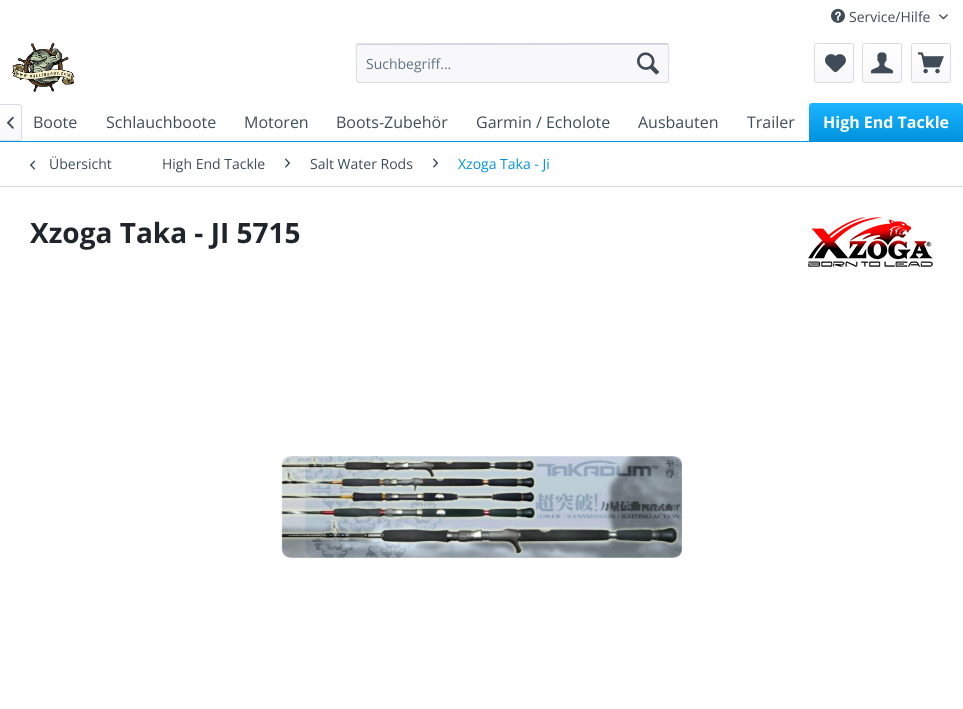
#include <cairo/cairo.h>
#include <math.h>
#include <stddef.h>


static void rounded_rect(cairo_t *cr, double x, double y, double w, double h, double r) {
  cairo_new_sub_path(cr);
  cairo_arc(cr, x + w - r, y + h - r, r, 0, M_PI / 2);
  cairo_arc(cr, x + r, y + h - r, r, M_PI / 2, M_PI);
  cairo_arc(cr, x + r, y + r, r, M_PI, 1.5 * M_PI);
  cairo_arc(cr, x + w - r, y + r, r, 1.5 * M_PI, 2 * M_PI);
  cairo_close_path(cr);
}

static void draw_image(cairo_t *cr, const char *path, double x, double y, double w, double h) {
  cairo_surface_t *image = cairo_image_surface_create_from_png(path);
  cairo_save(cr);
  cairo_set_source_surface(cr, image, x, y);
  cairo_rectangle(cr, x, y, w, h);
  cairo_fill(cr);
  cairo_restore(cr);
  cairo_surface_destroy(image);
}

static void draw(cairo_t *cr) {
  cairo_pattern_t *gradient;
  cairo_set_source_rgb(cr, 1, 1, 1);
  cairo_paint(cr);
  draw_image(cr, "images/1.png", 831, 8, 14, 15);
  draw_image(cr, "images/2.png", 939, 14, 9, 6);
  draw_image(cr, "images/3.png", 12, 43, 63, 49);
  cairo_set_source_rgb(cr, 248 / 255.0, 248 / 255.0, 250 / 255.0);
  rounded_rect(cr, 356, 43, 313, 40, 3);
  cairo_fill(cr);
  cairo_set_source_rgb(cr, 218 / 255.0, 218 / 255.0, 229 / 255.0);
  cairo_new_path(cr);
  cairo_move_to(cr, 359, 45);
  cairo_line_to(cr, 666, 45);
  cairo_curve_to(cr, 667, 45, 668, 46, 668, 47);
  cairo_curve_to(cr, 668, 46, 668, 44, 666, 44);
  cairo_line_to(cr, 358, 44);
  cairo_line_to(cr, 357, 45);
  cairo_line_to(cr, 357, 47);
  cairo_curve_to(cr, 357, 46, 358, 45, 359, 45);
  cairo_close_path(cr);
  cairo_fill(cr);
  cairo_new_path(cr);
  cairo_move_to(cr, 357, 44);
  cairo_line_to(cr, 358, 44);
  cairo_line_to(cr, 615, 43.5);
  cairo_line_to(cr, 666, 43.5);
  cairo_line_to(cr, 668, 44);
  cairo_set_source_rgb(cr, 203 / 255.0, 203 / 255.0, 219 / 255.0);
  cairo_set_line_width(cr, 1);
  cairo_stroke(cr);
  cairo_new_path(cr);
  cairo_move_to(cr, 668, 44);
  cairo_curve_to(cr, 669.5, 46, 668.5, 65, 668.5, 68.5);
  cairo_line_to(cr, 668.5, 74.5);
  cairo_curve_to(cr, 668.5, 76, 670, 82.5, 666, 82.5);
  cairo_line_to(cr, 359, 82.5);
  cairo_curve_to(cr, 355, 82.5, 356.5, 76, 356.5, 74.5);
  cairo_line_to(cr, 356.5, 68.5);
  cairo_curve_to(cr, 356.5, 65, 355.5, 46, 357, 44);
  cairo_set_source_rgb(cr, 218 / 255.0, 218 / 255.0, 229 / 255.0);
  cairo_stroke(cr);
  draw_image(cr, "images/4.png", 637, 52, 22, 23);
  gradient = cairo_pattern_create_linear(834, 44, 834, 82);
  cairo_pattern_add_color_stop_rgba(gradient, 0, 1, 1, 1, 1);
  cairo_pattern_add_color_stop_rgba(gradient, 1, 248 / 255.0, 248 / 255.0, 250 / 255.0, 1);
  cairo_set_source(cr, gradient);
  cairo_pattern_destroy(gradient);
  rounded_rect(cr, 815, 44, 38, 38, 2);
  cairo_fill(cr);
  rounded_rect(cr, 814.5, 43.5, 39, 39, 2.5);
  cairo_set_source_rgb(cr, 218 / 255.0, 218 / 255.0, 229 / 255.0);
  cairo_stroke(cr);
  draw_image(cr, "images/5.png", 825, 54, 21, 19);
  gradient = cairo_pattern_create_linear(882, 44, 882, 82);
  cairo_pattern_add_color_stop_rgba(gradient, 0, 1, 1, 1, 1);
  cairo_pattern_add_color_stop_rgba(gradient, 1, 248 / 255.0, 248 / 255.0, 250 / 255.0, 1);
  cairo_set_source(cr, gradient);
  cairo_pattern_destroy(gradient);
  rounded_rect(cr, 863, 44, 38, 38, 2);
  cairo_fill(cr);
  rounded_rect(cr, 862.5, 43.5, 39, 39, 2.5);
  cairo_set_source_rgb(cr, 218 / 255.0, 218 / 255.0, 229 / 255.0);
  cairo_stroke(cr);
  draw_image(cr, "images/6.png", 871, 52, 22, 22);
  gradient = cairo_pattern_create_linear(931, 44, 931, 82);
  cairo_pattern_add_color_stop_rgba(gradient, 0, 1, 1, 1, 1);
  cairo_pattern_add_color_stop_rgba(gradient, 1, 248 / 255.0, 248 / 255.0, 250 / 255.0, 1);
  cairo_set_source(cr, gradient);
  cairo_pattern_destroy(gradient);
  rounded_rect(cr, 912, 44, 38, 38, 2);
  cairo_fill(cr);
  rounded_rect(cr, 911.5, 43.5, 39, 39, 2.5);
  cairo_set_source_rgb(cr, 218 / 255.0, 218 / 255.0, 229 / 255.0);
  cairo_stroke(cr);
  draw_image(cr, "images/7.png", 918, 52, 26, 22);
  cairo_set_source_rgb(cr, 0, 147 / 255.0, 221 / 255.0);
  cairo_rectangle(cr, 0, 141, 963, 1);
  cairo_fill(cr);
  gradient = cairo_pattern_create_linear(10, 105, 11, 140);
  cairo_pattern_add_color_stop_rgba(gradient, 0, 1, 1, 1, 1);
  cairo_pattern_add_color_stop_rgba(gradient, 1, 248 / 255.0, 248 / 255.0, 250 / 255.0, 1);
  cairo_set_source(cr, gradient);
  cairo_pattern_destroy(gradient);
  cairo_new_path(cr);
  cairo_move_to(cr, 0, 105);
  cairo_line_to(cr, 19, 105);
  cairo_curve_to(cr, 20, 105, 21, 106, 21, 107);
  cairo_line_to(cr, 21, 138);
  cairo_curve_to(cr, 21, 139, 20, 140, 19, 140);
  cairo_line_to(cr, 0, 140);
  cairo_close_path(cr);
  cairo_fill(cr);
  cairo_set_source_rgb(cr, 218 / 255.0, 218 / 255.0, 229 / 255.0);
  cairo_set_fill_rule(cr, CAIRO_FILL_RULE_EVEN_ODD);
  cairo_new_path(cr);
  cairo_move_to(cr, 0, 104);
  cairo_line_to(cr, 19, 104);
  cairo_curve_to(cr, 20.5, 104, 22, 105.5, 22, 107);
  cairo_line_to(cr, 22, 138);
  cairo_curve_to(cr, 22, 139.5, 20.5, 141, 19, 141);
  cairo_line_to(cr, 0, 141);
  cairo_close_path(cr);
  cairo_move_to(cr, 0, 105);
  cairo_line_to(cr, 19, 105);
  cairo_curve_to(cr, 20, 105, 21, 106, 21, 107);
  cairo_line_to(cr, 21, 138);
  cairo_curve_to(cr, 21, 139, 20, 140, 19, 140);
  cairo_line_to(cr, 0, 140);
  cairo_close_path(cr);
  cairo_fill(cr);
  draw_image(cr, "images/8.png", 7, 116, 7, 13);
  gradient = cairo_pattern_create_linear(886, 103, 886, 141);
  cairo_pattern_add_color_stop_rgba(gradient, 0, 27 / 255.0, 179 / 255.0, 1, 1);
  cairo_pattern_add_color_stop_rgba(gradient, 1, 0, 147 / 255.0, 221 / 255.0, 1);
  cairo_set_source(cr, gradient);
  cairo_pattern_destroy(gradient);
  cairo_new_path(cr);
  cairo_move_to(cr, 812, 103);
  cairo_line_to(cr, 960, 103);
  cairo_curve_to(cr, 961.5, 103, 963, 104.5, 963, 106);
  cairo_line_to(cr, 963, 141);
  cairo_line_to(cr, 809, 141);
  cairo_line_to(cr, 809, 106);
  cairo_curve_to(cr, 809, 104.5, 810.5, 103, 812, 103);
  cairo_close_path(cr);
  cairo_fill(cr);
  cairo_set_source_rgb(cr, 218 / 255.0, 218 / 255.0, 229 / 255.0);
  cairo_rectangle(cr, 0, 186, 963, 1);
  cairo_fill(cr);
  draw_image(cr, "images/9.png", 30, 160, 6, 10);
  draw_image(cr, "images/10.png", 285, 158, 5, 10);
  draw_image(cr, "images/10.png", 433, 158, 5, 10);
  draw_image(cr, "images/11.png", 808, 217, 125, 50);
  draw_image(cr, "images/12.png", 281, 456, 401, 103);
  cairo_select_font_face(cr, "Open Sans", CAIRO_FONT_SLANT_NORMAL, CAIRO_FONT_WEIGHT_NORMAL);
  cairo_set_font_size(cr, 14);
  cairo_set_source_rgb(cr, 63 / 255.0, 76 / 255.0, 88 / 255.0);
  cairo_move_to(cr, 849, 22);
  cairo_show_text(cr, "Service/Hilfe");
  cairo_set_source_rgb(cr, 95 / 255.0, 115 / 255.0, 133 / 255.0);
  cairo_move_to(cr, 366, 69);
  cairo_show_text(cr, "Suchbegriff...");
  cairo_set_font_size(cr, 16);
  cairo_set_source_rgb(cr, 63 / 255.0, 76 / 255.0, 88 / 255.0);
  cairo_move_to(cr, 33, 128);
  cairo_show_text(cr, "Boote");
  cairo_move_to(cr, 106, 128);
  cairo_show_text(cr, "Schlauchboote");
  cairo_move_to(cr, 244, 128);
  cairo_show_text(cr, "Motoren");
  cairo_move_to(cr, 336, 128);
  cairo_show_text(cr, "Boots-Zubehör");
  cairo_move_to(cr, 476, 128);
  cairo_show_text(cr, "Garmin / Echolote");
  cairo_move_to(cr, 638, 128);
  cairo_show_text(cr, "Ausbauten");
  cairo_move_to(cr, 747, 128);
  cairo_show_text(cr, "Trailer");
  cairo_select_font_face(cr, "Open Sans", CAIRO_FONT_SLANT_NORMAL, CAIRO_FONT_WEIGHT_BOLD);
  cairo_set_source_rgb(cr, 1, 1, 1);
  cairo_move_to(cr, 823, 128);
  cairo_show_text(cr, "High End Tackle");
  cairo_select_font_face(cr, "Open Sans", CAIRO_FONT_SLANT_NORMAL, CAIRO_FONT_WEIGHT_NORMAL);
  cairo_set_font_size(cr, 14);
  cairo_set_source_rgb(cr, 63 / 255.0, 76 / 255.0, 88 / 255.0);
  cairo_move_to(cr, 49, 169);
  cairo_show_text(cr, "Übersicht");
  cairo_move_to(cr, 162, 169);
  cairo_show_text(cr, "High End Tackle");
  cairo_move_to(cr, 310, 169);
  cairo_show_text(cr, "Salt Water Rods");
  cairo_set_source_rgb(cr, 0, 147 / 255.0, 221 / 255.0);
  cairo_move_to(cr, 458, 169);
  cairo_show_text(cr, "Xzoga Taka - Ji");
  cairo_select_font_face(cr, "Open Sans", CAIRO_FONT_SLANT_NORMAL, CAIRO_FONT_WEIGHT_BOLD);
  cairo_set_font_size(cr, 28);
  cairo_set_source_rgb(cr, 31 / 255.0, 37 / 255.0, 43 / 255.0);
  cairo_move_to(cr, 30, 243);
  cairo_show_text(cr, "Xzoga Taka - JI 5715");
}

int main(void) {
  cairo_surface_t *surface = cairo_image_surface_create(CAIRO_FORMAT_RGB24, 963, 709);
  cairo_t *cr = cairo_create(surface);
  cairo_font_options_t *options = cairo_font_options_create();
  cairo_font_options_set_hint_metrics(options, CAIRO_HINT_METRICS_OFF);
  cairo_font_options_set_hint_style(options, CAIRO_HINT_STYLE_NONE);
  cairo_set_font_options(cr, options);
  cairo_set_miter_limit(cr, 4);
  draw(cr);
  cairo_surface_write_to_png(surface, "out.png");
  cairo_font_options_destroy(options);
  cairo_destroy(cr);
  cairo_surface_destroy(surface);
  return 0;
}
